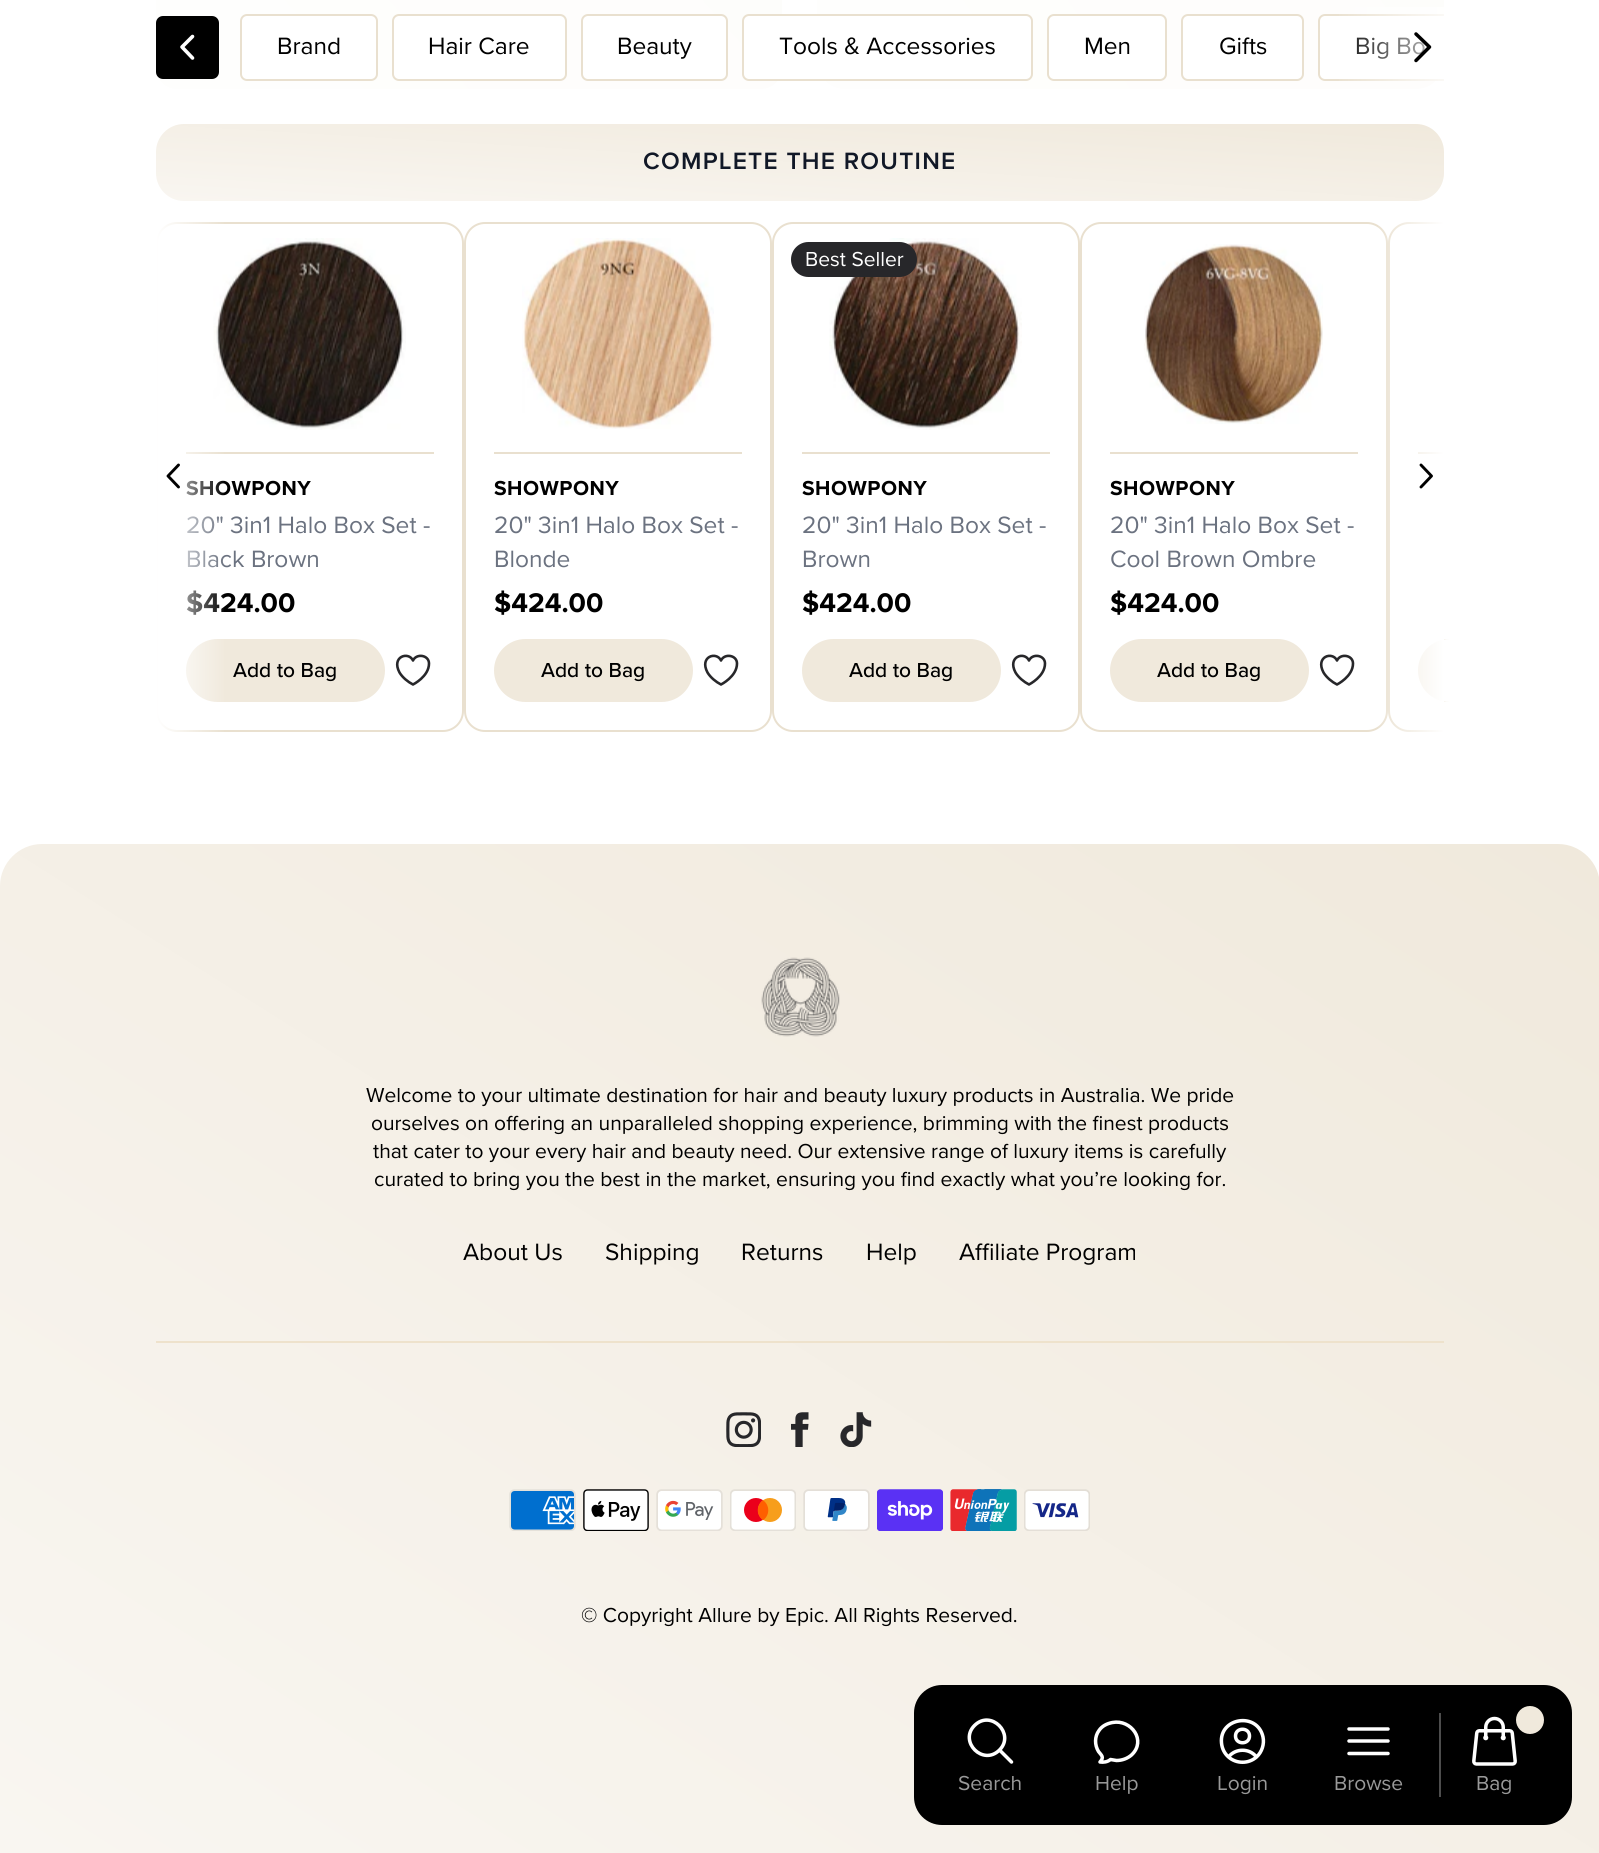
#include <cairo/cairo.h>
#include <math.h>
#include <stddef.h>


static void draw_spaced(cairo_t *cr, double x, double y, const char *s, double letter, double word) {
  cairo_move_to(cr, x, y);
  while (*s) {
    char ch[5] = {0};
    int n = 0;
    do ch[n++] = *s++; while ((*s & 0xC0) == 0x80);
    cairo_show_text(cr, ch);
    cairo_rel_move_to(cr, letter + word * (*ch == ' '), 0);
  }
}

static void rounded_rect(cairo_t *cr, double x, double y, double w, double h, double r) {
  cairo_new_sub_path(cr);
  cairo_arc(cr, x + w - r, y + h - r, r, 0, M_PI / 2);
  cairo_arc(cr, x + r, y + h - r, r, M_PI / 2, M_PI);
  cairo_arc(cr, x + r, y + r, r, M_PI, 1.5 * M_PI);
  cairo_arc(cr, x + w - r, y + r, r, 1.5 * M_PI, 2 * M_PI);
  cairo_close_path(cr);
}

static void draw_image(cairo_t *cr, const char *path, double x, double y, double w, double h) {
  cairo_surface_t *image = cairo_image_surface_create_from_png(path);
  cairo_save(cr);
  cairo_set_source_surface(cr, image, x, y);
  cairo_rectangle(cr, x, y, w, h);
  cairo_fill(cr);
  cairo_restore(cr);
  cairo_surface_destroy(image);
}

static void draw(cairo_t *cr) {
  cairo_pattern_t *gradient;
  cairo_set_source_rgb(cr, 1, 1, 1);
  cairo_paint(cr);
  gradient = cairo_pattern_create_linear(121, 51, 817, -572);
  cairo_pattern_add_color_stop_rgba(gradient, 0, 254 / 255.0, 254 / 255.0, 253 / 255.0, 1);
  cairo_pattern_add_color_stop_rgba(gradient, 1, 253 / 255.0, 252 / 255.0, 250 / 255.0, 1);
  cairo_set_source(cr, gradient);
  cairo_pattern_destroy(gradient);
  rounded_rect(cr, 156, -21, 626, 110, 21);
  cairo_fill(cr);
  cairo_set_source_rgb(cr, 0, 0, 0);
  rounded_rect(cr, 156, 16, 63, 63, 7);
  cairo_fill(cr);
  cairo_new_path(cr);
  cairo_move_to(cr, 192.5, 58);
  cairo_line_to(cr, 182, 47);
  cairo_line_to(cr, 192.5, 36.5);
  cairo_set_source_rgb(cr, 1, 1, 1);
  cairo_set_line_width(cr, 3.6);
  cairo_set_line_cap(cr, CAIRO_LINE_CAP_ROUND);
  cairo_set_line_join(cr, CAIRO_LINE_JOIN_ROUND);
  cairo_stroke(cr);
  rounded_rect(cr, 241, 15, 136, 65, 6);
  cairo_fill_preserve(cr);
  cairo_set_source_rgb(cr, 233 / 255.0, 224 / 255.0, 207 / 255.0);
  cairo_set_line_width(cr, 2);
  cairo_set_line_cap(cr, CAIRO_LINE_CAP_BUTT);
  cairo_set_line_join(cr, CAIRO_LINE_JOIN_MITER);
  cairo_stroke(cr);
  cairo_set_source_rgb(cr, 1, 1, 1);
  rounded_rect(cr, 393, 15, 173, 65, 6);
  cairo_fill_preserve(cr);
  cairo_set_source_rgb(cr, 233 / 255.0, 224 / 255.0, 207 / 255.0);
  cairo_stroke(cr);
  cairo_set_source_rgb(cr, 1, 1, 1);
  rounded_rect(cr, 582, 15, 145, 65, 6);
  cairo_fill_preserve(cr);
  cairo_set_source_rgb(cr, 233 / 255.0, 224 / 255.0, 207 / 255.0);
  cairo_stroke(cr);
  gradient = cairo_pattern_create_linear(714, -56, 1547, -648);
  cairo_pattern_add_color_stop_rgba(gradient, 0, 254 / 255.0, 254 / 255.0, 253 / 255.0, 1);
  cairo_pattern_add_color_stop_rgba(gradient, 1, 253 / 255.0, 252 / 255.0, 250 / 255.0, 1);
  cairo_set_source(cr, gradient);
  cairo_pattern_destroy(gradient);
  rounded_rect(cr, 817, -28, 627, 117, 28);
  cairo_fill(cr);
  cairo_set_source_rgb(cr, 1, 1, 1);
  rounded_rect(cr, 743, 15, 289, 65, 6);
  cairo_fill_preserve(cr);
  cairo_set_source_rgb(cr, 233 / 255.0, 224 / 255.0, 207 / 255.0);
  cairo_stroke(cr);
  cairo_set_source_rgb(cr, 1, 1, 1);
  rounded_rect(cr, 1048, 15, 118, 65, 6);
  cairo_fill_preserve(cr);
  cairo_set_source_rgb(cr, 233 / 255.0, 224 / 255.0, 207 / 255.0);
  cairo_stroke(cr);
  cairo_set_source_rgb(cr, 1, 1, 1);
  rounded_rect(cr, 1182, 15, 121, 65, 6);
  cairo_fill_preserve(cr);
  cairo_set_source_rgb(cr, 233 / 255.0, 224 / 255.0, 207 / 255.0);
  cairo_stroke(cr);
  cairo_set_source_rgb(cr, 1, 1, 1);
  cairo_new_path(cr);
  cairo_move_to(cr, 1325, 14);
  cairo_line_to(cr, 1444, 14);
  cairo_line_to(cr, 1444, 81);
  cairo_line_to(cr, 1325, 81);
  cairo_curve_to(cr, 1321, 81, 1318, 78, 1318, 74);
  cairo_line_to(cr, 1318, 21);
  cairo_curve_to(cr, 1318, 17, 1321, 14, 1325, 14);
  cairo_close_path(cr);
  cairo_fill(cr);
  cairo_save(cr);
  cairo_rectangle(cr, 233, 7, 1211, 81);
  cairo_clip(cr);
  rounded_rect(cr, 1319, 15, 187, 65, 6);
  cairo_set_source_rgb(cr, 233 / 255.0, 224 / 255.0, 207 / 255.0);
  cairo_stroke(cr);
  cairo_restore(cr);
  gradient = cairo_pattern_create_linear(795, 239, 804, 86);
  cairo_pattern_add_color_stop_rgba(gradient, 0, 249 / 255.0, 246 / 255.0, 241 / 255.0, 1);
  cairo_pattern_add_color_stop_rgba(gradient, 1, 240 / 255.0, 233 / 255.0, 220 / 255.0, 1);
  cairo_set_source(cr, gradient);
  cairo_pattern_destroy(gradient);
  rounded_rect(cr, 156, 124, 1288, 77, 28);
  cairo_fill(cr);
  rounded_rect(cr, 1081, 223, 306, 508, 20);
  cairo_set_source_rgb(cr, 233 / 255.0, 224 / 255.0, 207 / 255.0);
  cairo_stroke(cr);
  cairo_save(cr);
  cairo_rectangle(cr, 156, 222, 1288, 510);
  cairo_clip(cr);
  rounded_rect(cr, 1389, 223, 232, 508, 20);
  cairo_stroke(cr);
  cairo_restore(cr);
  cairo_rectangle(cr, 1418, 452, 26, 2);
  cairo_fill(cr);
  cairo_set_source_rgb(cr, 240 / 255.0, 233 / 255.0, 220 / 255.0);
  cairo_new_path(cr);
  cairo_move_to(cr, 1449.5, 639);
  cairo_line_to(cr, 1444, 639);
  cairo_line_to(cr, 1444, 702);
  cairo_line_to(cr, 1449.5, 702);
  cairo_curve_to(cr, 1432, 702, 1418, 688, 1418, 670.5);
  cairo_curve_to(cr, 1418, 653, 1432, 639, 1449.5, 639);
  cairo_close_path(cr);
  cairo_fill(cr);
  gradient = cairo_pattern_create_linear(1444, 477, 1374, 477);
  cairo_pattern_add_color_stop_rgba(gradient, 0, 1, 1, 1, 1);
  cairo_pattern_add_color_stop_rgba(gradient, 1, 1, 1, 1, 0);
  cairo_set_source(cr, gradient);
  cairo_pattern_destroy(gradient);
  cairo_rectangle(cr, 1378, 222, 66, 510);
  cairo_fill(cr);
  cairo_new_path(cr);
  cairo_move_to(cr, 1421, 465);
  cairo_line_to(cr, 1431.5, 476);
  cairo_line_to(cr, 1421, 487);
  cairo_set_source_rgb(cr, 0, 0, 0);
  cairo_set_line_width(cr, 2.9);
  cairo_set_line_cap(cr, CAIRO_LINE_CAP_ROUND);
  cairo_set_line_join(cr, CAIRO_LINE_JOIN_ROUND);
  cairo_stroke(cr);
  rounded_rect(cr, 157, 223, 306, 508, 20);
  cairo_set_source_rgb(cr, 233 / 255.0, 224 / 255.0, 207 / 255.0);
  cairo_set_line_width(cr, 2);
  cairo_set_line_cap(cr, CAIRO_LINE_CAP_BUTT);
  cairo_set_line_join(cr, CAIRO_LINE_JOIN_MITER);
  cairo_stroke(cr);
  draw_image(cr, "images/1.png", 213, 238, 193, 192);
  cairo_rectangle(cr, 186, 452, 248, 2);
  cairo_fill(cr);
  cairo_set_source_rgb(cr, 240 / 255.0, 233 / 255.0, 220 / 255.0);
  rounded_rect(cr, 186, 639, 199, 63, 31.5);
  cairo_fill(cr);
  cairo_new_path(cr);
  cairo_move_to(cr, 429, 663.5);
  cairo_curve_to(cr, 429, 655, 416.5, 653, 413, 660.5);
  cairo_curve_to(cr, 408.5, 651, 391, 656.5, 399.5, 672.5);
  cairo_curve_to(cr, 402.5, 677.5, 408, 682, 413, 684.5);
  cairo_curve_to(cr, 413, 684.5, 429, 676.5, 429, 663.5);
  cairo_close_path(cr);
  cairo_set_source_rgb(cr, 39 / 255.0, 39 / 255.0, 42 / 255.0);
  cairo_set_line_width(cr, 2.6);
  cairo_set_line_cap(cr, CAIRO_LINE_CAP_ROUND);
  cairo_set_line_join(cr, CAIRO_LINE_JOIN_ROUND);
  cairo_stroke(cr);
  rounded_rect(cr, 465, 223, 306, 508, 20);
  cairo_set_source_rgb(cr, 233 / 255.0, 224 / 255.0, 207 / 255.0);
  cairo_set_line_width(cr, 2);
  cairo_set_line_cap(cr, CAIRO_LINE_CAP_BUTT);
  cairo_set_line_join(cr, CAIRO_LINE_JOIN_MITER);
  cairo_stroke(cr);
  draw_image(cr, "images/2.png", 522, 238, 192, 191);
  cairo_rectangle(cr, 494, 452, 248, 2);
  cairo_fill(cr);
  cairo_set_source_rgb(cr, 240 / 255.0, 233 / 255.0, 220 / 255.0);
  rounded_rect(cr, 494, 639, 199, 63, 31.5);
  cairo_fill(cr);
  cairo_new_path(cr);
  cairo_move_to(cr, 737, 663.5);
  cairo_curve_to(cr, 737, 655, 724.5, 653, 721, 660.5);
  cairo_curve_to(cr, 716.5, 651, 699, 656.5, 707.5, 672.5);
  cairo_curve_to(cr, 710.5, 677.5, 716, 682, 721, 684.5);
  cairo_curve_to(cr, 721, 684.5, 737, 676.5, 737, 663.5);
  cairo_close_path(cr);
  cairo_set_source_rgb(cr, 39 / 255.0, 39 / 255.0, 42 / 255.0);
  cairo_set_line_width(cr, 2.6);
  cairo_set_line_cap(cr, CAIRO_LINE_CAP_ROUND);
  cairo_set_line_join(cr, CAIRO_LINE_JOIN_ROUND);
  cairo_stroke(cr);
  rounded_rect(cr, 773, 223, 306, 508, 20);
  cairo_set_source_rgb(cr, 233 / 255.0, 224 / 255.0, 207 / 255.0);
  cairo_set_line_width(cr, 2);
  cairo_set_line_cap(cr, CAIRO_LINE_CAP_BUTT);
  cairo_set_line_join(cr, CAIRO_LINE_JOIN_MITER);
  cairo_stroke(cr);
  draw_image(cr, "images/3.png", 829, 238, 193, 192);
  cairo_set_source_rgb(cr, 39 / 255.0, 39 / 255.0, 42 / 255.0);
  rounded_rect(cr, 791, 242, 126, 35, 17.5);
  cairo_fill(cr);
  cairo_set_source_rgb(cr, 233 / 255.0, 224 / 255.0, 207 / 255.0);
  cairo_rectangle(cr, 802, 452, 248, 2);
  cairo_fill(cr);
  cairo_set_source_rgb(cr, 240 / 255.0, 233 / 255.0, 220 / 255.0);
  rounded_rect(cr, 802, 639, 199, 63, 31.5);
  cairo_fill(cr);
  cairo_new_path(cr);
  cairo_move_to(cr, 1045, 663.5);
  cairo_curve_to(cr, 1045, 655, 1032.5, 653, 1029, 660.5);
  cairo_curve_to(cr, 1024.5, 651, 1007, 656.5, 1015.5, 672.5);
  cairo_curve_to(cr, 1018.5, 677.5, 1024, 682, 1029, 684.5);
  cairo_curve_to(cr, 1029, 684.5, 1045, 676.5, 1045, 663.5);
  cairo_close_path(cr);
  cairo_set_source_rgb(cr, 39 / 255.0, 39 / 255.0, 42 / 255.0);
  cairo_set_line_width(cr, 2.6);
  cairo_set_line_cap(cr, CAIRO_LINE_CAP_ROUND);
  cairo_set_line_join(cr, CAIRO_LINE_JOIN_ROUND);
  cairo_stroke(cr);
  draw_image(cr, "images/4.png", 1144, 244, 179, 180);
  cairo_set_source_rgb(cr, 233 / 255.0, 224 / 255.0, 207 / 255.0);
  cairo_rectangle(cr, 1110, 452, 248, 2);
  cairo_fill(cr);
  cairo_set_source_rgb(cr, 240 / 255.0, 233 / 255.0, 220 / 255.0);
  rounded_rect(cr, 1110, 639, 199, 63, 31.5);
  cairo_fill(cr);
  cairo_new_path(cr);
  cairo_move_to(cr, 1353, 663.5);
  cairo_curve_to(cr, 1353, 655, 1340.5, 653, 1337, 660.5);
  cairo_curve_to(cr, 1332.5, 651, 1315, 656.5, 1323.5, 672.5);
  cairo_curve_to(cr, 1326.5, 677.5, 1332, 682, 1337, 684.5);
  cairo_curve_to(cr, 1337, 684.5, 1353, 676.5, 1353, 663.5);
  cairo_close_path(cr);
  cairo_set_source_rgb(cr, 39 / 255.0, 39 / 255.0, 42 / 255.0);
  cairo_stroke(cr);
  gradient = cairo_pattern_create_linear(344, 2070, 1256, 626);
  cairo_pattern_add_color_stop_rgba(gradient, 0, 249 / 255.0, 246 / 255.0, 241 / 255.0, 1);
  cairo_pattern_add_color_stop_rgba(gradient, 1, 240 / 255.0, 233 / 255.0, 220 / 255.0, 1);
  cairo_set_source(cr, gradient);
  cairo_pattern_destroy(gradient);
  cairo_new_path(cr);
  cairo_move_to(cr, 42, 844);
  cairo_line_to(cr, 1558, 844);
  cairo_curve_to(cr, 1581, 844, 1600, 863, 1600, 886);
  cairo_line_to(cr, 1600, 1853);
  cairo_line_to(cr, 0, 1853);
  cairo_line_to(cr, 0, 886);
  cairo_curve_to(cr, 0, 863, 19, 844, 42, 844);
  cairo_close_path(cr);
  cairo_fill(cr);
  draw_image(cr, "images/5.png", 761, 957, 79, 80);
  cairo_set_source_rgb(cr, 238 / 255.0, 226 / 255.0, 204 / 255.0);
  cairo_rectangle(cr, 156, 1341, 1288, 2);
  cairo_fill(cr);
  draw_image(cr, "images/6.png", 726, 1412, 35, 35);
  draw_image(cr, "images/7.png", 791, 1412, 18, 35);
  draw_image(cr, "images/8.png", 840, 1412, 32, 35);
  draw_image(cr, "images/9.png", 509, 1489, 67, 42);
  draw_image(cr, "images/10.png", 583, 1489, 66, 42);
  draw_image(cr, "images/11.png", 656, 1489, 67, 42);
  draw_image(cr, "images/12.png", 730, 1489, 66, 42);
  draw_image(cr, "images/13.png", 803, 1489, 67, 42);
  draw_image(cr, "images/14.png", 877, 1489, 66, 42);
  draw_image(cr, "images/15.png", 950, 1489, 67, 42);
  draw_image(cr, "images/16.png", 1024, 1489, 66, 42);
  cairo_set_source_rgb(cr, 0, 0, 0);
  rounded_rect(cr, 914, 1685, 658, 140, 28);
  cairo_fill(cr);
  cairo_new_path(cr);
  cairo_move_to(cr, 1011.5, 1762);
  cairo_line_to(cr, 999.5, 1750);
  cairo_move_to(cr, 999.5, 1750);
  cairo_curve_to(cr, 1015.5, 1734, 991, 1709, 974.5, 1725.5);
  cairo_curve_to(cr, 958.5, 1741.5, 983, 1766.5, 999.5, 1750);
  cairo_close_path(cr);
  cairo_set_source_rgb(cr, 1, 1, 1);
  cairo_set_line_width(cr, 3.5);
  cairo_stroke(cr);
  cairo_new_path(cr);
  cairo_move_to(cr, 1116.5, 1760.5);
  cairo_curve_to(cr, 1122, 1760.5, 1127.5, 1758.5, 1131.5, 1755);
  cairo_curve_to(cr, 1147, 1740.5, 1131, 1719, 1112.5, 1722.5);
  cairo_curve_to(cr, 1107, 1723.5, 1102, 1726, 1099, 1730.5);
  cairo_curve_to(cr, 1094.5, 1736.5, 1094.5, 1745, 1098.5, 1751.5);
  cairo_curve_to(cr, 1101.5, 1755.5, 1104.5, 1757, 1100, 1762);
  cairo_curve_to(cr, 1103.5, 1762.5, 1107.5, 1762, 1110.5, 1759.5);
  cairo_close_path(cr);
  cairo_stroke(cr);
  cairo_new_path(cr);
  cairo_move_to(cr, 1256.5, 1757);
  cairo_curve_to(cr, 1249.5, 1748, 1235.5, 1748, 1228.5, 1757);
  cairo_move_to(cr, 1256.5, 1757);
  cairo_curve_to(cr, 1262, 1752, 1264.5, 1744, 1263, 1737);
  cairo_curve_to(cr, 1257.5, 1711.5, 1219, 1717.5, 1221.5, 1743);
  cairo_curve_to(cr, 1222, 1748.5, 1224.5, 1753.5, 1228.5, 1757);
  cairo_move_to(cr, 1256.5, 1757);
  cairo_curve_to(cr, 1248.5, 1764, 1236.5, 1764, 1228.5, 1757);
  cairo_move_to(cr, 1249.5, 1736);
  cairo_curve_to(cr, 1249.5, 1745, 1235.5, 1745, 1235.5, 1736);
  cairo_curve_to(cr, 1235.5, 1727, 1249.5, 1727, 1249.5, 1736);
  cairo_close_path(cr);
  cairo_stroke(cr);
  cairo_new_path(cr);
  cairo_move_to(cr, 1349, 1729);
  cairo_line_to(cr, 1388, 1729);
  cairo_move_to(cr, 1349, 1741);
  cairo_line_to(cr, 1388, 1741);
  cairo_move_to(cr, 1349, 1753.5);
  cairo_line_to(cr, 1388, 1753.5);
  cairo_stroke(cr);
  cairo_set_source_rgb(cr, 77 / 255.0, 77 / 255.0, 77 / 255.0);
  cairo_rectangle(cr, 1439, 1713, 2, 84);
  cairo_fill(cr);
  draw_image(cr, "images/17.png", 1472, 1716, 45, 50);
  cairo_set_source_rgb(cr, 240 / 255.0, 233 / 255.0, 220 / 255.0);
  cairo_arc(cr, 1530, 1720, 14, 0, 2 * M_PI);
  cairo_fill(cr);
  cairo_select_font_face(cr, "Proxima Nova", CAIRO_FONT_SLANT_NORMAL, CAIRO_FONT_WEIGHT_NORMAL);
  cairo_set_font_size(cr, 24.5);
  cairo_set_source_rgb(cr, 0, 0, 0);
  cairo_move_to(cr, 277, 54);
  cairo_show_text(cr, "Brand");
  cairo_move_to(cr, 428, 54);
  cairo_show_text(cr, "Hair Care");
  cairo_move_to(cr, 617, 54);
  cairo_show_text(cr, "Beauty");
  cairo_move_to(cr, 779, 54);
  cairo_show_text(cr, "Tools & Accessories");
  cairo_move_to(cr, 1084, 54);
  cairo_show_text(cr, "Men");
  cairo_move_to(cr, 1219, 54);
  cairo_show_text(cr, "Gifts");
  cairo_move_to(cr, 1355, 54);
  cairo_show_text(cr, "Big Bo");
  gradient = cairo_pattern_create_linear(1444, 47, 1332, 47);
  cairo_pattern_add_color_stop_rgba(gradient, 0, 1, 1, 1, 0.8);
  cairo_pattern_add_color_stop_rgba(gradient, 1, 1, 1, 1, 0);
  cairo_set_source(cr, gradient);
  cairo_pattern_destroy(gradient);
  cairo_rectangle(cr, 1339, 7, 105, 74);
  cairo_fill(cr);
  cairo_new_path(cr);
  cairo_move_to(cr, 1416, 34);
  cairo_line_to(cr, 1429.5, 47);
  cairo_line_to(cr, 1416, 60.5);
  cairo_set_source_rgb(cr, 0, 0, 0);
  cairo_stroke(cr);
  cairo_select_font_face(cr, "Proxima Nova SemiBold", CAIRO_FONT_SLANT_NORMAL, CAIRO_FONT_WEIGHT_NORMAL);
  cairo_set_source_rgb(cr, 17 / 255.0, 24 / 255.0, 39 / 255.0);
  draw_spaced(cr, 643, 169, "COMPLETE THE ROUTINE", 1.25, 0);
  cairo_select_font_face(cr, "Proxima Nova", CAIRO_FONT_SLANT_NORMAL, CAIRO_FONT_WEIGHT_BOLD);
  cairo_set_font_size(cr, 21);
  cairo_set_source_rgb(cr, 0, 0, 0);
  draw_spaced(cr, 186, 495, "SHOWPONY", 0.5, 0);
  cairo_select_font_face(cr, "Proxima Nova", CAIRO_FONT_SLANT_NORMAL, CAIRO_FONT_WEIGHT_NORMAL);
  cairo_set_font_size(cr, 24.5);
  cairo_set_source_rgb(cr, 107 / 255.0, 114 / 255.0, 128 / 255.0);
  cairo_move_to(cr, 186, 533);
  cairo_show_text(cr, "20\" 3in1 Halo Box Set -");
  cairo_move_to(cr, 186, 567);
  cairo_show_text(cr, "Black Brown");
  cairo_select_font_face(cr, "Proxima Nova", CAIRO_FONT_SLANT_NORMAL, CAIRO_FONT_WEIGHT_BOLD);
  cairo_set_font_size(cr, 28);
  cairo_set_source_rgb(cr, 0, 0, 0);
  cairo_move_to(cr, 186, 612);
  cairo_show_text(cr, "$424.00");
  gradient = cairo_pattern_create_linear(156, 477, 226, 477);
  cairo_pattern_add_color_stop_rgba(gradient, 0, 1, 1, 1, 1);
  cairo_pattern_add_color_stop_rgba(gradient, 1, 1, 1, 1, 0);
  cairo_set_source(cr, gradient);
  cairo_pattern_destroy(gradient);
  cairo_rectangle(cr, 156, 222, 68, 510);
  cairo_fill(cr);
  cairo_new_path(cr);
  cairo_move_to(cr, 178.5, 487);
  cairo_line_to(cr, 168, 476);
  cairo_line_to(cr, 178.5, 465);
  cairo_set_source_rgb(cr, 0, 0, 0);
  cairo_set_line_width(cr, 2.9);
  cairo_stroke(cr);
  cairo_select_font_face(cr, "Proxima Nova Medium", CAIRO_FONT_SLANT_NORMAL, CAIRO_FONT_WEIGHT_NORMAL);
  cairo_set_font_size(cr, 21);
  cairo_move_to(cr, 233, 677);
  cairo_show_text(cr, "Add to Bag");
  cairo_select_font_face(cr, "Proxima Nova", CAIRO_FONT_SLANT_NORMAL, CAIRO_FONT_WEIGHT_BOLD);
  draw_spaced(cr, 494, 495, "SHOWPONY", 0.5, 0);
  cairo_select_font_face(cr, "Proxima Nova", CAIRO_FONT_SLANT_NORMAL, CAIRO_FONT_WEIGHT_NORMAL);
  cairo_set_font_size(cr, 24.5);
  cairo_set_source_rgb(cr, 107 / 255.0, 114 / 255.0, 128 / 255.0);
  cairo_move_to(cr, 494, 533);
  cairo_show_text(cr, "20\" 3in1 Halo Box Set -");
  cairo_move_to(cr, 494, 567);
  cairo_show_text(cr, "Blonde");
  cairo_select_font_face(cr, "Proxima Nova", CAIRO_FONT_SLANT_NORMAL, CAIRO_FONT_WEIGHT_BOLD);
  cairo_set_font_size(cr, 28);
  cairo_set_source_rgb(cr, 0, 0, 0);
  cairo_move_to(cr, 494, 612);
  cairo_show_text(cr, "$424.00");
  cairo_select_font_face(cr, "Proxima Nova Medium", CAIRO_FONT_SLANT_NORMAL, CAIRO_FONT_WEIGHT_NORMAL);
  cairo_set_font_size(cr, 21);
  cairo_move_to(cr, 541, 677);
  cairo_show_text(cr, "Add to Bag");
  cairo_select_font_face(cr, "Proxima Nova", CAIRO_FONT_SLANT_NORMAL, CAIRO_FONT_WEIGHT_NORMAL);
  cairo_set_source_rgb(cr, 1, 1, 1);
  cairo_move_to(cr, 805, 266);
  cairo_show_text(cr, "Best Seller");
  cairo_select_font_face(cr, "Proxima Nova", CAIRO_FONT_SLANT_NORMAL, CAIRO_FONT_WEIGHT_BOLD);
  cairo_set_source_rgb(cr, 0, 0, 0);
  draw_spaced(cr, 802, 495, "SHOWPONY", 0.5, 0);
  cairo_select_font_face(cr, "Proxima Nova", CAIRO_FONT_SLANT_NORMAL, CAIRO_FONT_WEIGHT_NORMAL);
  cairo_set_font_size(cr, 24.5);
  cairo_set_source_rgb(cr, 107 / 255.0, 114 / 255.0, 128 / 255.0);
  cairo_move_to(cr, 802, 533);
  cairo_show_text(cr, "20\" 3in1 Halo Box Set -");
  cairo_move_to(cr, 802, 567);
  cairo_show_text(cr, "Brown");
  cairo_select_font_face(cr, "Proxima Nova", CAIRO_FONT_SLANT_NORMAL, CAIRO_FONT_WEIGHT_BOLD);
  cairo_set_font_size(cr, 28);
  cairo_set_source_rgb(cr, 0, 0, 0);
  cairo_move_to(cr, 802, 612);
  cairo_show_text(cr, "$424.00");
  cairo_select_font_face(cr, "Proxima Nova Medium", CAIRO_FONT_SLANT_NORMAL, CAIRO_FONT_WEIGHT_NORMAL);
  cairo_set_font_size(cr, 21);
  cairo_move_to(cr, 849, 677);
  cairo_show_text(cr, "Add to Bag");
  cairo_select_font_face(cr, "Proxima Nova", CAIRO_FONT_SLANT_NORMAL, CAIRO_FONT_WEIGHT_BOLD);
  draw_spaced(cr, 1110, 495, "SHOWPONY", 0.5, 0);
  cairo_select_font_face(cr, "Proxima Nova", CAIRO_FONT_SLANT_NORMAL, CAIRO_FONT_WEIGHT_NORMAL);
  cairo_set_font_size(cr, 24.5);
  cairo_set_source_rgb(cr, 107 / 255.0, 114 / 255.0, 128 / 255.0);
  cairo_move_to(cr, 1110, 533);
  cairo_show_text(cr, "20\" 3in1 Halo Box Set -");
  cairo_move_to(cr, 1110, 567);
  cairo_show_text(cr, "Cool Brown Ombre");
  cairo_select_font_face(cr, "Proxima Nova", CAIRO_FONT_SLANT_NORMAL, CAIRO_FONT_WEIGHT_BOLD);
  cairo_set_font_size(cr, 28);
  cairo_set_source_rgb(cr, 0, 0, 0);
  cairo_move_to(cr, 1110, 612);
  cairo_show_text(cr, "$424.00");
  cairo_select_font_face(cr, "Proxima Nova Medium", CAIRO_FONT_SLANT_NORMAL, CAIRO_FONT_WEIGHT_NORMAL);
  cairo_set_font_size(cr, 21);
  cairo_move_to(cr, 1157, 677);
  cairo_show_text(cr, "Add to Bag");
  cairo_select_font_face(cr, "Proxima Nova", CAIRO_FONT_SLANT_NORMAL, CAIRO_FONT_WEIGHT_NORMAL);
  cairo_move_to(cr, 366, 1102);
  cairo_show_text(cr, "Welcome to your ultimate destination for hair and beauty luxury products in Australia. We pride");
  cairo_move_to(cr, 371, 1130);
  cairo_show_text(cr, "ourselves on offering an unparalleled shopping experience, brimming with the finest products");
  cairo_move_to(cr, 373, 1158);
  cairo_show_text(cr, "that cater to your every hair and beauty need. Our extensive range of luxury items is carefully");
  cairo_move_to(cr, 374, 1186);
  cairo_show_text(cr, "curated to bring you the best in the market, ensuring you find exactly what you’re looking for.");
  cairo_set_font_size(cr, 24.5);
  cairo_move_to(cr, 463, 1260);
  cairo_show_text(cr, "About Us");
  cairo_move_to(cr, 605, 1260);
  cairo_show_text(cr, "Shipping");
  cairo_move_to(cr, 741, 1260);
  cairo_show_text(cr, "Returns");
  cairo_move_to(cr, 866, 1260);
  cairo_show_text(cr, "Help");
  cairo_move_to(cr, 959, 1260);
  cairo_show_text(cr, "Affiliate Program");
  cairo_set_font_size(cr, 21);
  cairo_move_to(cr, 581, 1622);
  cairo_show_text(cr, "© Copyright Allure by Epic. All Rights Reserved.");
  cairo_set_source_rgb(cr, 153 / 255.0, 153 / 255.0, 153 / 255.0);
  cairo_move_to(cr, 958, 1790);
  cairo_show_text(cr, "Search");
  cairo_move_to(cr, 1095, 1790);
  cairo_show_text(cr, "Help");
  cairo_move_to(cr, 1217, 1790);
  cairo_show_text(cr, "Login");
  cairo_move_to(cr, 1334, 1790);
  cairo_show_text(cr, "Browse");
  cairo_move_to(cr, 1476, 1790);
  cairo_show_text(cr, "Bag");
}

int main(void) {
  cairo_surface_t *surface = cairo_image_surface_create(CAIRO_FORMAT_RGB24, 1599, 1853);
  cairo_t *cr = cairo_create(surface);
  cairo_font_options_t *options = cairo_font_options_create();
  cairo_font_options_set_hint_metrics(options, CAIRO_HINT_METRICS_OFF);
  cairo_font_options_set_hint_style(options, CAIRO_HINT_STYLE_NONE);
  cairo_set_font_options(cr, options);
  cairo_set_miter_limit(cr, 4);
  draw(cr);
  cairo_surface_write_to_png(surface, "out.png");
  cairo_font_options_destroy(options);
  cairo_destroy(cr);
  cairo_surface_destroy(surface);
  return 0;
}
